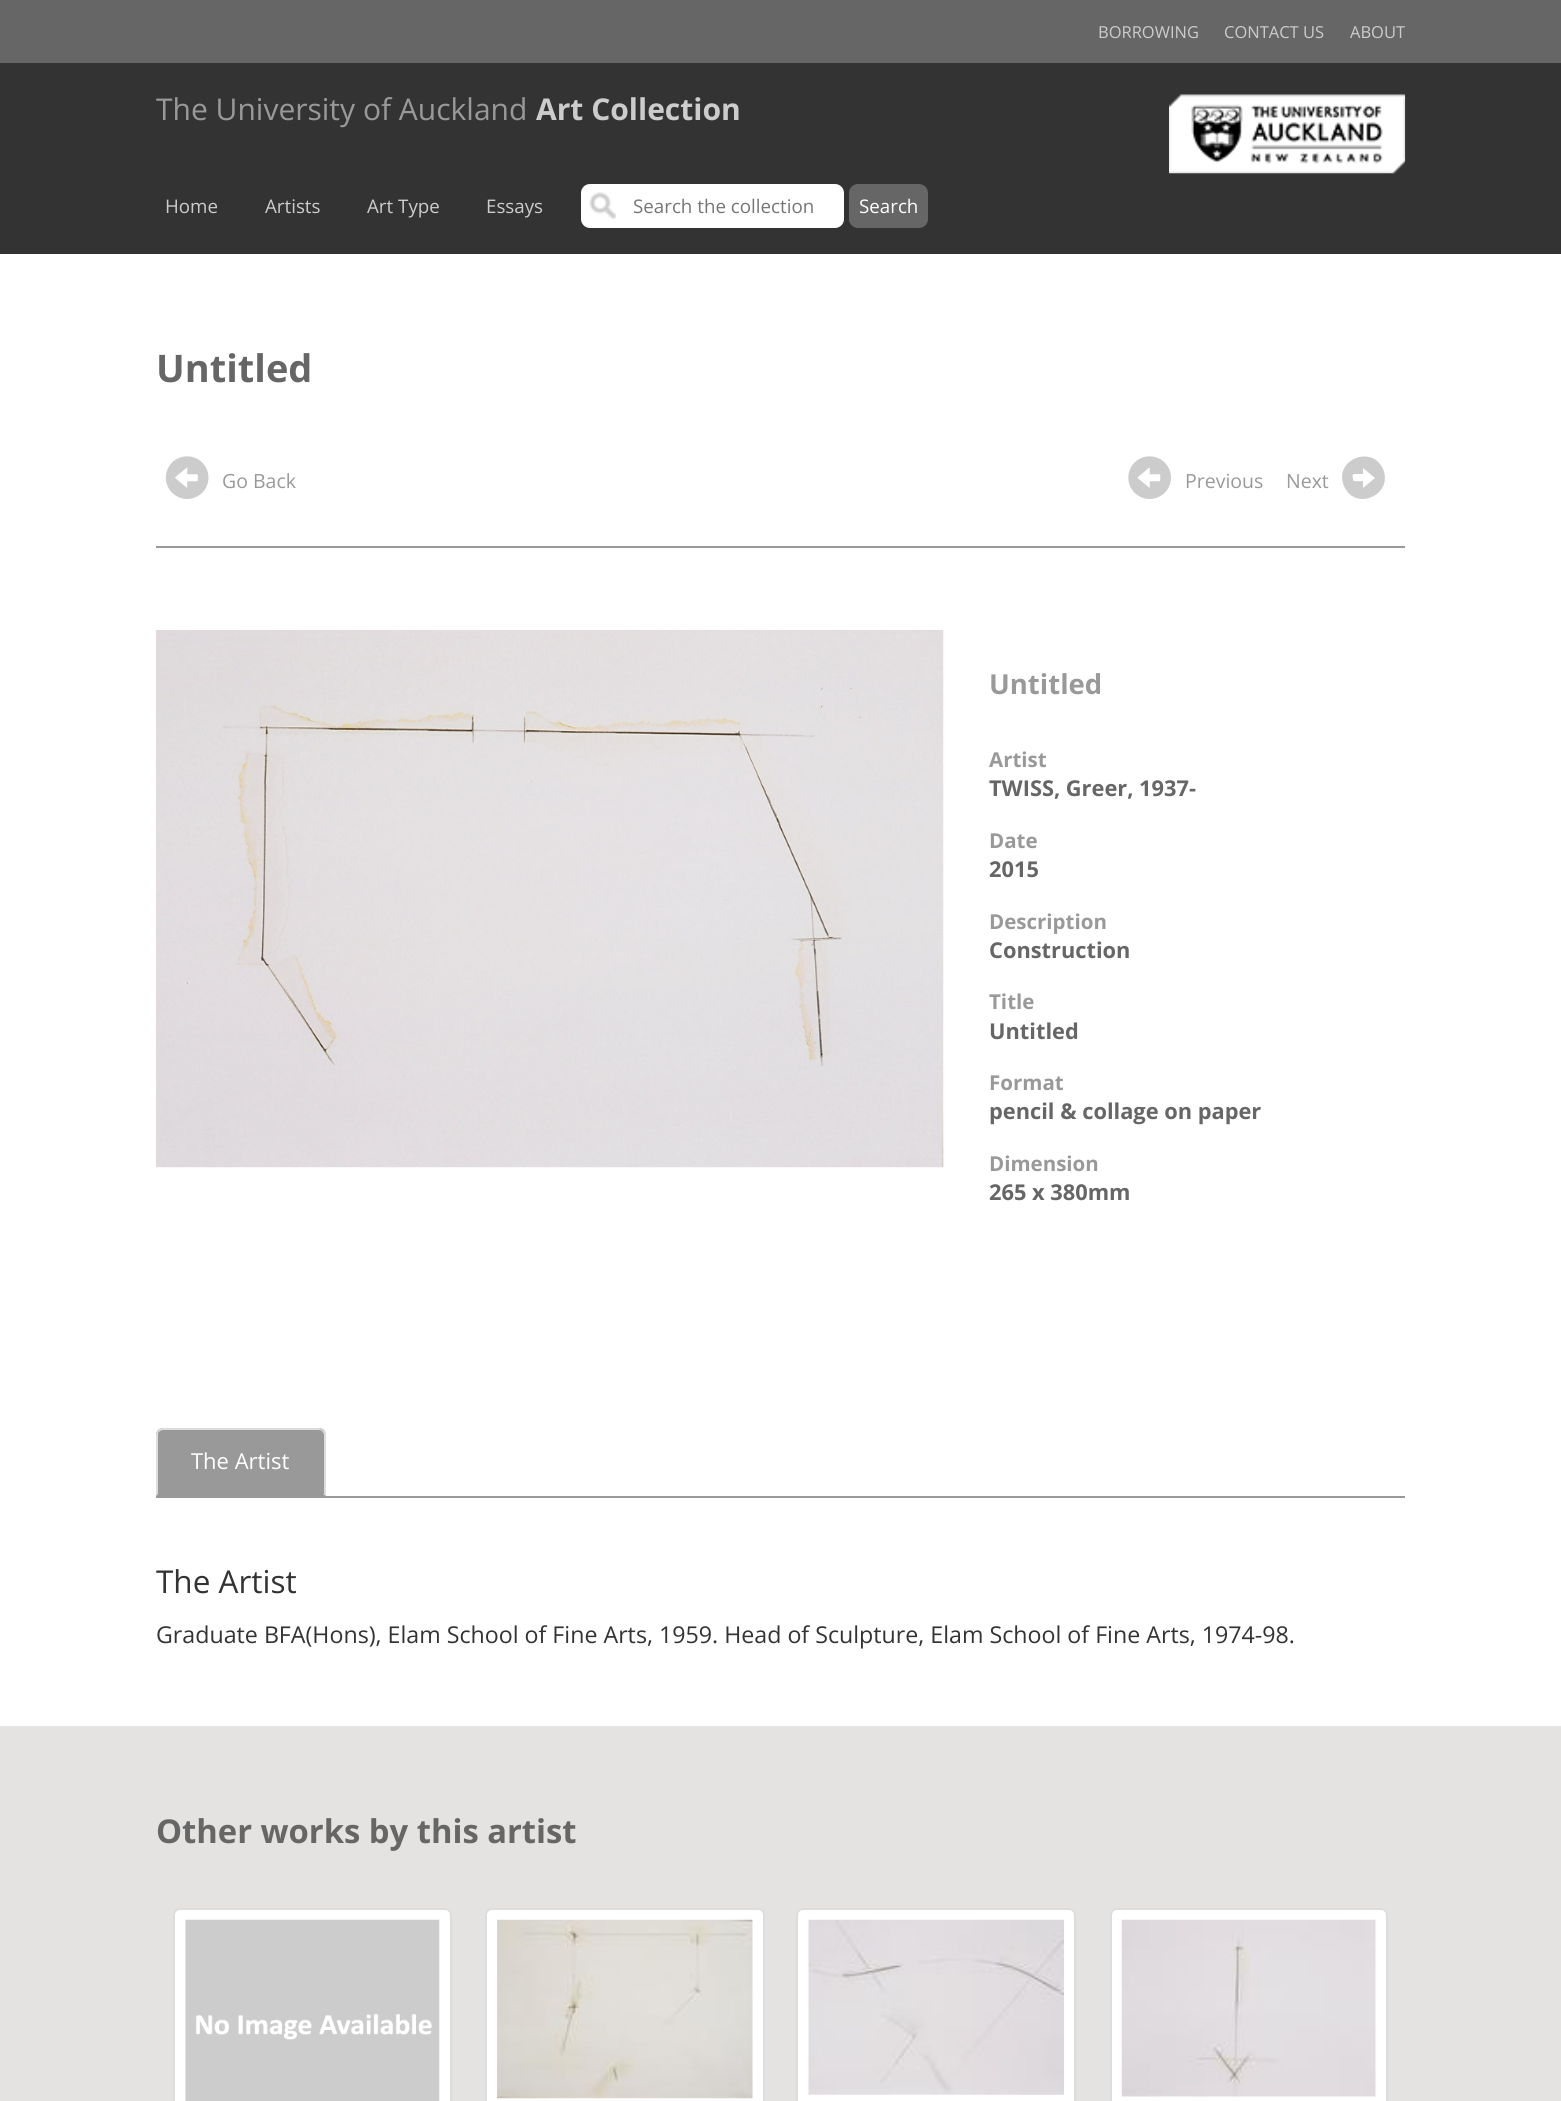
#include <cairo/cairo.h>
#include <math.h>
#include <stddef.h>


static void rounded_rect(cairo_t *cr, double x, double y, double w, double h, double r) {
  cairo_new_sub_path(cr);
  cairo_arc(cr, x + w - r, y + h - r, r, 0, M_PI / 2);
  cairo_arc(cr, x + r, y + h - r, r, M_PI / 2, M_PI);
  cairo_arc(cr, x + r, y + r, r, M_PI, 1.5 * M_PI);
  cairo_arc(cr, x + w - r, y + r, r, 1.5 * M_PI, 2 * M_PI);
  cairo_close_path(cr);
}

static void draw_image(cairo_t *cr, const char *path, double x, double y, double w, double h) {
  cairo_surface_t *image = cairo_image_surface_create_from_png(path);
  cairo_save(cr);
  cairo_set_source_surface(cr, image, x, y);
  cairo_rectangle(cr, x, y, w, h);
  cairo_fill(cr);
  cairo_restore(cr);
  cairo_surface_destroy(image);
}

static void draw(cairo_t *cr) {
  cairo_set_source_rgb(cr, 1, 1, 1);
  cairo_paint(cr);
  cairo_set_source_rgb(cr, 51 / 255.0, 51 / 255.0, 51 / 255.0);
  cairo_rectangle(cr, 0, 63, 1561, 191);
  cairo_fill(cr);
  cairo_set_source_rgb(cr, 102 / 255.0, 102 / 255.0, 102 / 255.0);
  cairo_rectangle(cr, 0, 0, 1561, 63);
  cairo_fill(cr);
  draw_image(cr, "images/1.png", 1169, 94, 237, 80);
  cairo_set_source_rgb(cr, 1, 1, 1);
  rounded_rect(cr, 581, 184, 263, 44, 9);
  cairo_fill(cr);
  draw_image(cr, "images/2.png", 589, 192, 27, 27);
  cairo_set_source_rgb(cr, 102 / 255.0, 102 / 255.0, 102 / 255.0);
  rounded_rect(cr, 849, 184, 79, 44, 9);
  cairo_fill(cr);
  draw_image(cr, "images/3.png", 165, 456, 44, 43);
  draw_image(cr, "images/4.png", 1128, 456, 43, 43);
  cairo_set_source_rgb(cr, 204 / 255.0, 204 / 255.0, 204 / 255.0);
  cairo_new_path(cr);
  cairo_move_to(cr, 1344, 486);
  cairo_curve_to(cr, 1333, 460, 1372, 444, 1383, 469);
  cairo_curve_to(cr, 1394, 495, 1355, 512, 1344, 486);
  cairo_close_path(cr);
  cairo_move_to(cr, 1353, 480);
  cairo_curve_to(cr, 1353, 482, 1362, 481, 1363, 481);
  cairo_line_to(cr, 1363, 488);
  cairo_line_to(cr, 1375, 478);
  cairo_line_to(cr, 1363, 468);
  cairo_line_to(cr, 1363, 474);
  cairo_line_to(cr, 1355, 474);
  cairo_curve_to(cr, 1351, 474, 1353, 476, 1353, 480);
  cairo_close_path(cr);
  cairo_fill(cr);
  cairo_set_source_rgb(cr, 153 / 255.0, 153 / 255.0, 153 / 255.0);
  cairo_rectangle(cr, 156, 546, 1249, 2);
  cairo_fill(cr);
  draw_image(cr, "images/5.png", 156, 630, 788, 538);
  cairo_rectangle(cr, 156, 1496, 1249, 2);
  cairo_fill(cr);
  cairo_new_path(cr);
  cairo_move_to(cr, 163, 1428);
  cairo_line_to(cr, 319, 1428);
  cairo_curve_to(cr, 323, 1428, 326, 1431, 326, 1435);
  cairo_line_to(cr, 326, 1496);
  cairo_line_to(cr, 156, 1496);
  cairo_line_to(cr, 156, 1435);
  cairo_curve_to(cr, 156, 1431, 159, 1428, 163, 1428);
  cairo_close_path(cr);
  cairo_fill(cr);
  cairo_set_source_rgb(cr, 221 / 255.0, 221 / 255.0, 221 / 255.0);
  cairo_new_path(cr);
  cairo_move_to(cr, 163, 1428);
  cairo_curve_to(cr, 161, 1428, 159, 1429, 158, 1430);
  cairo_line_to(cr, 159, 1432);
  cairo_curve_to(cr, 160, 1431, 161, 1430, 163, 1430);
  cairo_line_to(cr, 318, 1430);
  cairo_curve_to(cr, 320, 1430, 321, 1430, 322, 1431);
  cairo_line_to(cr, 324, 1430);
  cairo_curve_to(cr, 322, 1429, 320, 1428, 318, 1428);
  cairo_close_path(cr);
  cairo_fill(cr);
  cairo_new_path(cr);
  cairo_move_to(cr, 326, 1496);
  cairo_line_to(cr, 323, 1494);
  cairo_line_to(cr, 324, 1494);
  cairo_line_to(cr, 324, 1434);
  cairo_line_to(cr, 322, 1431);
  cairo_line_to(cr, 324, 1430);
  cairo_line_to(cr, 326, 1433);
  cairo_close_path(cr);
  cairo_fill(cr);
  cairo_new_path(cr);
  cairo_move_to(cr, 158, 1430);
  cairo_curve_to(cr, 157, 1431, 156, 1433, 156, 1435);
  cairo_line_to(cr, 156, 1496);
  cairo_line_to(cr, 158, 1494);
  cairo_line_to(cr, 158, 1435);
  cairo_curve_to(cr, 158, 1434, 158, 1432, 159, 1432);
  cairo_close_path(cr);
  cairo_fill(cr);
  cairo_set_source_rgb(cr, 229 / 255.0, 227 / 255.0, 225 / 255.0);
  cairo_rectangle(cr, 0, 1726, 1561, 375);
  cairo_fill(cr);
  cairo_set_source_rgb(cr, 1, 1, 1);
  rounded_rect(cr, 174, 1909, 277, 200, 6);
  cairo_fill_preserve(cr);
  cairo_set_source_rgb(cr, 221 / 255.0, 221 / 255.0, 221 / 255.0);
  cairo_stroke(cr);
  draw_image(cr, "images/6.png", 185, 1919, 255, 182);
  cairo_set_source_rgb(cr, 1, 1, 1);
  rounded_rect(cr, 486, 1909, 278, 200, 6);
  cairo_fill_preserve(cr);
  cairo_set_source_rgb(cr, 221 / 255.0, 221 / 255.0, 221 / 255.0);
  cairo_stroke(cr);
  draw_image(cr, "images/7.png", 497, 1919, 256, 180);
  cairo_set_source_rgb(cr, 1, 1, 1);
  rounded_rect(cr, 797, 1909, 278, 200, 6);
  cairo_fill_preserve(cr);
  cairo_set_source_rgb(cr, 221 / 255.0, 221 / 255.0, 221 / 255.0);
  cairo_stroke(cr);
  draw_image(cr, "images/8.png", 808, 1919, 256, 176);
  cairo_set_source_rgb(cr, 1, 1, 1);
  rounded_rect(cr, 1111, 1909, 276, 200, 6);
  cairo_fill_preserve(cr);
  cairo_set_source_rgb(cr, 221 / 255.0, 221 / 255.0, 221 / 255.0);
  cairo_stroke(cr);
  draw_image(cr, "images/9.png", 1121, 1919, 255, 178);
  cairo_select_font_face(cr, "Open Sans", CAIRO_FONT_SLANT_NORMAL, CAIRO_FONT_WEIGHT_NORMAL);
  cairo_set_font_size(cr, 16.5);
  cairo_set_source_rgb(cr, 204 / 255.0, 204 / 255.0, 204 / 255.0);
  cairo_move_to(cr, 1098, 38);
  cairo_show_text(cr, "BORROWING");
  cairo_move_to(cr, 1224, 38);
  cairo_show_text(cr, "CONTACT US");
  cairo_move_to(cr, 1350, 38);
  cairo_show_text(cr, "ABOUT");
  cairo_set_font_size(cr, 30);
  cairo_set_source_rgb(cr, 153 / 255.0, 153 / 255.0, 153 / 255.0);
  cairo_move_to(cr, 156, 120);
  cairo_show_text(cr, "The University of Auckland");
  cairo_select_font_face(cr, "Open Sans", CAIRO_FONT_SLANT_NORMAL, CAIRO_FONT_WEIGHT_BOLD);
  cairo_set_source_rgb(cr, 204 / 255.0, 204 / 255.0, 204 / 255.0);
  cairo_move_to(cr, 536, 120);
  cairo_show_text(cr, "Art Collection");
  cairo_select_font_face(cr, "Open Sans", CAIRO_FONT_SLANT_NORMAL, CAIRO_FONT_WEIGHT_NORMAL);
  cairo_set_font_size(cr, 18.75);
  cairo_move_to(cr, 165, 213);
  cairo_show_text(cr, "Home");
  cairo_move_to(cr, 265, 213);
  cairo_show_text(cr, "Artists");
  cairo_move_to(cr, 367, 213);
  cairo_show_text(cr, "Art Type");
  cairo_move_to(cr, 486, 213);
  cairo_show_text(cr, "Essays");
  cairo_set_source_rgb(cr, 117 / 255.0, 117 / 255.0, 117 / 255.0);
  cairo_move_to(cr, 633, 213);
  cairo_show_text(cr, "Search the collection");
  cairo_set_source_rgb(cr, 1, 1, 1);
  cairo_move_to(cr, 859, 213);
  cairo_show_text(cr, "Search");
  cairo_select_font_face(cr, "Open Sans", CAIRO_FONT_SLANT_NORMAL, CAIRO_FONT_WEIGHT_BOLD);
  cairo_set_font_size(cr, 38);
  cairo_set_source_rgb(cr, 102 / 255.0, 102 / 255.0, 102 / 255.0);
  cairo_move_to(cr, 156, 382);
  cairo_show_text(cr, "Untitled");
  cairo_select_font_face(cr, "Open Sans", CAIRO_FONT_SLANT_NORMAL, CAIRO_FONT_WEIGHT_NORMAL);
  cairo_set_font_size(cr, 19.5);
  cairo_set_source_rgb(cr, 153 / 255.0, 153 / 255.0, 153 / 255.0);
  cairo_move_to(cr, 222, 488);
  cairo_show_text(cr, "Go Back");
  cairo_move_to(cr, 1185, 488);
  cairo_show_text(cr, "Previous");
  cairo_move_to(cr, 1286, 488);
  cairo_show_text(cr, "Next");
  cairo_select_font_face(cr, "Open Sans", CAIRO_FONT_SLANT_NORMAL, CAIRO_FONT_WEIGHT_BOLD);
  cairo_set_font_size(cr, 27.5);
  cairo_move_to(cr, 989, 694);
  cairo_show_text(cr, "Untitled");
  cairo_set_font_size(cr, 20.5);
  cairo_move_to(cr, 989, 767);
  cairo_show_text(cr, "Artist");
  cairo_set_font_size(cr, 21.8);
  cairo_set_source_rgb(cr, 102 / 255.0, 102 / 255.0, 102 / 255.0);
  cairo_move_to(cr, 989, 796);
  cairo_show_text(cr, "TWISS, Greer, 1937-");
  cairo_set_font_size(cr, 20.5);
  cairo_set_source_rgb(cr, 153 / 255.0, 153 / 255.0, 153 / 255.0);
  cairo_move_to(cr, 989, 848);
  cairo_show_text(cr, "Date");
  cairo_set_font_size(cr, 21.8);
  cairo_set_source_rgb(cr, 102 / 255.0, 102 / 255.0, 102 / 255.0);
  cairo_move_to(cr, 989, 877);
  cairo_show_text(cr, "2015");
  cairo_set_font_size(cr, 20.5);
  cairo_set_source_rgb(cr, 153 / 255.0, 153 / 255.0, 153 / 255.0);
  cairo_move_to(cr, 989, 929);
  cairo_show_text(cr, "Description");
  cairo_set_font_size(cr, 21.8);
  cairo_set_source_rgb(cr, 102 / 255.0, 102 / 255.0, 102 / 255.0);
  cairo_move_to(cr, 989, 958);
  cairo_show_text(cr, "Construction");
  cairo_set_font_size(cr, 20.5);
  cairo_set_source_rgb(cr, 153 / 255.0, 153 / 255.0, 153 / 255.0);
  cairo_move_to(cr, 989, 1009);
  cairo_show_text(cr, "Title");
  cairo_set_font_size(cr, 21.8);
  cairo_set_source_rgb(cr, 102 / 255.0, 102 / 255.0, 102 / 255.0);
  cairo_move_to(cr, 989, 1039);
  cairo_show_text(cr, "Untitled");
  cairo_set_font_size(cr, 20.5);
  cairo_set_source_rgb(cr, 153 / 255.0, 153 / 255.0, 153 / 255.0);
  cairo_move_to(cr, 989, 1090);
  cairo_show_text(cr, "Format");
  cairo_set_font_size(cr, 21.8);
  cairo_set_source_rgb(cr, 102 / 255.0, 102 / 255.0, 102 / 255.0);
  cairo_move_to(cr, 989, 1119);
  cairo_show_text(cr, "pencil & collage on paper");
  cairo_set_font_size(cr, 20.5);
  cairo_set_source_rgb(cr, 153 / 255.0, 153 / 255.0, 153 / 255.0);
  cairo_move_to(cr, 989, 1171);
  cairo_show_text(cr, "Dimension");
  cairo_set_font_size(cr, 21.8);
  cairo_set_source_rgb(cr, 102 / 255.0, 102 / 255.0, 102 / 255.0);
  cairo_move_to(cr, 989, 1200);
  cairo_show_text(cr, "265 x 380mm");
  cairo_select_font_face(cr, "Open Sans", CAIRO_FONT_SLANT_NORMAL, CAIRO_FONT_WEIGHT_NORMAL);
  cairo_set_font_size(cr, 22);
  cairo_set_source_rgb(cr, 1, 1, 1);
  cairo_move_to(cr, 191, 1469);
  cairo_show_text(cr, "The Artist");
  cairo_set_font_size(cr, 31.5);
  cairo_set_source_rgb(cr, 51 / 255.0, 51 / 255.0, 51 / 255.0);
  cairo_move_to(cr, 156, 1593);
  cairo_show_text(cr, "The Artist");
  cairo_set_font_size(cr, 23.2);
  cairo_move_to(cr, 156, 1643);
  cairo_show_text(cr, "Graduate BFA(Hons), Elam School of Fine Arts, 1959. Head of Sculpture, Elam School of Fine Arts, 1974-98.");
  cairo_select_font_face(cr, "Open Sans", CAIRO_FONT_SLANT_NORMAL, CAIRO_FONT_WEIGHT_BOLD);
  cairo_set_font_size(cr, 32.75);
  cairo_set_source_rgb(cr, 102 / 255.0, 102 / 255.0, 102 / 255.0);
  cairo_move_to(cr, 156, 1843);
  cairo_show_text(cr, "Other works by this artist");
}

int main(void) {
  cairo_surface_t *surface = cairo_image_surface_create(CAIRO_FORMAT_RGB24, 1561, 2101);
  cairo_t *cr = cairo_create(surface);
  cairo_font_options_t *options = cairo_font_options_create();
  cairo_font_options_set_hint_metrics(options, CAIRO_HINT_METRICS_OFF);
  cairo_font_options_set_hint_style(options, CAIRO_HINT_STYLE_NONE);
  cairo_set_font_options(cr, options);
  cairo_set_miter_limit(cr, 4);
  draw(cr);
  cairo_surface_write_to_png(surface, "out.png");
  cairo_font_options_destroy(options);
  cairo_destroy(cr);
  cairo_surface_destroy(surface);
  return 0;
}
